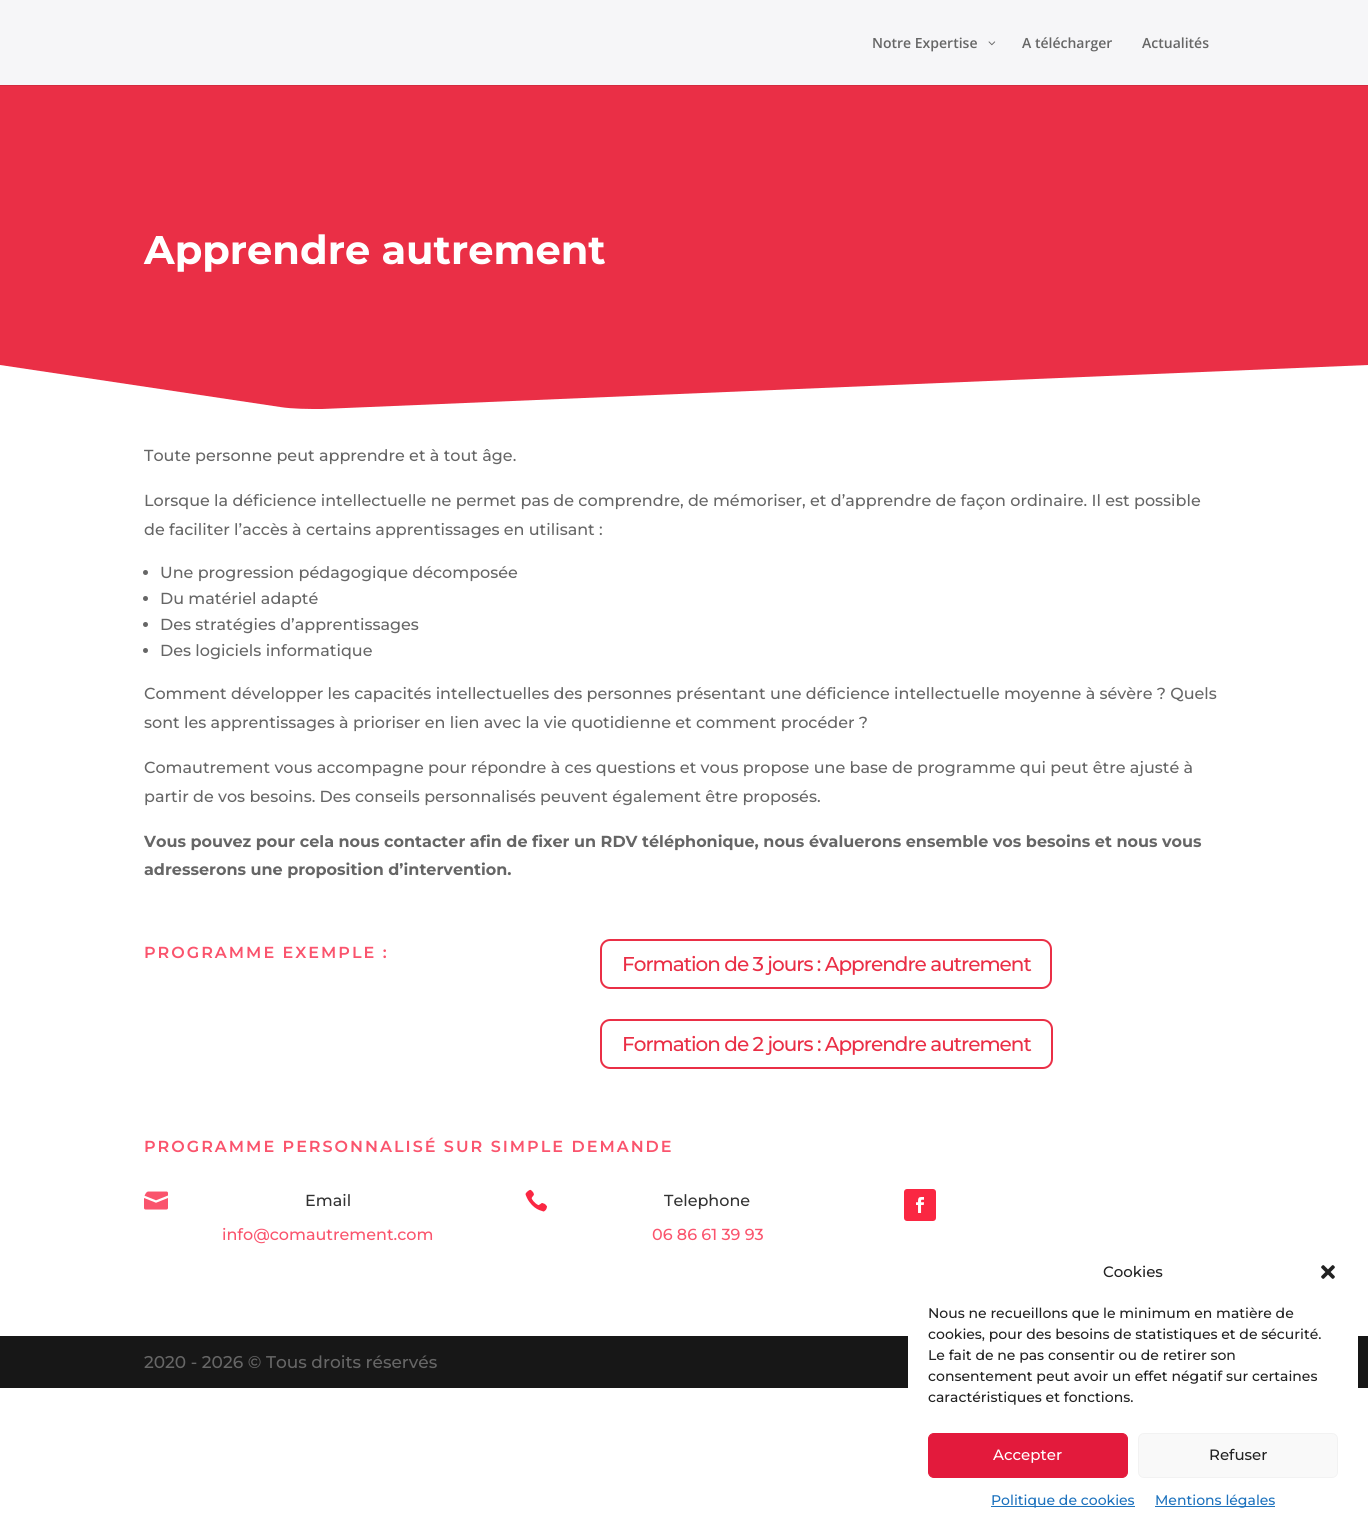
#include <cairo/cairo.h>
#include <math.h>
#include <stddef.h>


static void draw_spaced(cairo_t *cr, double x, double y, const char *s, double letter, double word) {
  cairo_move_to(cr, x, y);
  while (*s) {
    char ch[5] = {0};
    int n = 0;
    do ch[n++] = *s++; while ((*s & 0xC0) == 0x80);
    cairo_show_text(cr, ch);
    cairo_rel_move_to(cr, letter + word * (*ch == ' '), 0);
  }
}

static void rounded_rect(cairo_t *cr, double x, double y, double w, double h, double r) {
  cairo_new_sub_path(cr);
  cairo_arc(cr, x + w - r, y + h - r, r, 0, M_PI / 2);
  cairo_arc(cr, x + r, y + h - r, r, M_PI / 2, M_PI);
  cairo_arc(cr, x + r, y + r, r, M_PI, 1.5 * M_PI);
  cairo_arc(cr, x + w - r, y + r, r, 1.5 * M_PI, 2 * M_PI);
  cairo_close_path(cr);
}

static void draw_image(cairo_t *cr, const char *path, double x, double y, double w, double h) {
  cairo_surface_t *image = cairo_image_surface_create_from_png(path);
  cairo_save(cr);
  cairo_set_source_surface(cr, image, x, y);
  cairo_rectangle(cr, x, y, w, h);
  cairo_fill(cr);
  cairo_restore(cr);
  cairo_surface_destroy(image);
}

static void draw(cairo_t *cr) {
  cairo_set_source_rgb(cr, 1, 1, 1);
  cairo_paint(cr);
  cairo_set_source_rgb(cr, 211 / 255.0, 42 / 255.0, 63 / 255.0);
  cairo_rectangle(cr, 0, 85, 1368, 1);
  cairo_fill(cr);
  cairo_set_source_rgb(cr, 246 / 255.0, 246 / 255.0, 248 / 255.0);
  cairo_rectangle(cr, 0, 0, 1368, 85);
  cairo_fill(cr);
  draw_image(cr, "images/1.png", 988, 41, 8, 5);
  cairo_set_source_rgb(cr, 234 / 255.0, 47 / 255.0, 70 / 255.0);
  cairo_rectangle(cr, 0, 86, 1368, 323);
  cairo_fill(cr);
  cairo_set_source_rgb(cr, 1, 1, 1);
  cairo_new_path(cr);
  cairo_move_to(cr, 0, 365);
  cairo_line_to(cr, 280, 407);
  cairo_curve_to(cr, 293, 409, 308, 409, 322, 409);
  cairo_line_to(cr, 1368, 365);
  cairo_line_to(cr, 1368, 415);
  cairo_line_to(cr, 0, 415);
  cairo_close_path(cr);
  cairo_fill(cr);
  cairo_set_source_rgb(cr, 102 / 255.0, 102 / 255.0, 102 / 255.0);
  cairo_arc(cr, 145.5, 572.5, 2.5, 0, 2 * M_PI);
  cairo_fill(cr);
  cairo_arc(cr, 145.5, 598.5, 2.5, 0, 2 * M_PI);
  cairo_fill(cr);
  cairo_arc(cr, 145.5, 624.5, 2.5, 0, 2 * M_PI);
  cairo_fill(cr);
  cairo_arc(cr, 145.5, 650.5, 2.5, 0, 2 * M_PI);
  cairo_fill(cr);
  rounded_rect(cr, 601, 940, 450, 48, 9);
  cairo_set_source_rgb(cr, 234 / 255.0, 47 / 255.0, 70 / 255.0);
  cairo_stroke(cr);
  rounded_rect(cr, 601, 1020, 451, 48, 9);
  cairo_stroke(cr);
  draw_image(cr, "images/2.png", 144, 1191, 24, 19);
  draw_image(cr, "images/3.png", 525, 1189, 22, 23);
  cairo_set_source_rgb(cr, 250 / 255.0, 39 / 255.0, 66 / 255.0);
  rounded_rect(cr, 904, 1189, 32, 32, 3);
  cairo_fill(cr);
  draw_image(cr, "images/4.png", 916, 1197, 8, 16);
  cairo_set_source_rgb(cr, 23 / 255.0, 23 / 255.0, 23 / 255.0);
  cairo_rectangle(cr, 0, 1336, 1368, 52);
  cairo_fill(cr);
  cairo_set_source_rgb(cr, 1, 1, 1);
  rounded_rect(cr, 908, 1246, 450, 280, 12);
  cairo_fill(cr);
  draw_image(cr, "images/5.png", 1321, 1265, 14, 14);
  cairo_set_source_rgb(cr, 227 / 255.0, 26 / 255.0, 60 / 255.0);
  rounded_rect(cr, 928.5, 1433.5, 199, 44, 5.5);
  cairo_fill_preserve(cr);
  cairo_set_line_width(cr, 1);
  cairo_stroke(cr);
  cairo_set_source_rgb(cr, 249 / 255.0, 249 / 255.0, 249 / 255.0);
  rounded_rect(cr, 1138.5, 1433.5, 199, 44, 5.5);
  cairo_fill_preserve(cr);
  cairo_set_source_rgb(cr, 242 / 255.0, 242 / 255.0, 242 / 255.0);
  cairo_stroke(cr);
  cairo_set_source_rgb(cr, 30 / 255.0, 115 / 255.0, 190 / 255.0);
  cairo_rectangle(cr, 991, 1506, 144, 1);
  cairo_fill(cr);
  cairo_rectangle(cr, 1155, 1506, 120, 1);
  cairo_fill(cr);
  cairo_select_font_face(cr, "Open Sans SemiBold", CAIRO_FONT_SLANT_NORMAL, CAIRO_FONT_WEIGHT_NORMAL);
  cairo_set_font_size(cr, 14);
  cairo_set_source_rgb(cr, 102 / 255.0, 102 / 255.0, 102 / 255.0);
  cairo_move_to(cr, 872, 48);
  cairo_show_text(cr, "Notre Expertise");
  cairo_move_to(cr, 1022, 48);
  cairo_show_text(cr, "A télécharger");
  cairo_move_to(cr, 1142, 48);
  cairo_show_text(cr, "Actualités");
  cairo_select_font_face(cr, "Montserrat", CAIRO_FONT_SLANT_NORMAL, CAIRO_FONT_WEIGHT_BOLD);
  cairo_set_font_size(cr, 40);
  cairo_set_source_rgb(cr, 1, 1, 1);
  cairo_move_to(cr, 144, 264);
  cairo_show_text(cr, "Apprendre autrement");
  cairo_select_font_face(cr, "Montserrat Medium", CAIRO_FONT_SLANT_NORMAL, CAIRO_FONT_WEIGHT_NORMAL);
  cairo_set_font_size(cr, 16);
  cairo_set_source_rgb(cr, 102 / 255.0, 102 / 255.0, 102 / 255.0);
  cairo_move_to(cr, 144, 461);
  cairo_show_text(cr, "Toute personne peut apprendre et à tout âge.");
  cairo_move_to(cr, 144, 506);
  cairo_show_text(cr, "Lorsque la déficience intellectuelle ne permet pas de comprendre, de mémoriser, et d’apprendre de façon ordinaire. Il est possible");
  cairo_move_to(cr, 144, 535);
  cairo_show_text(cr, "de faciliter l’accès à certains apprentissages en utilisant :");
  cairo_move_to(cr, 160, 578);
  cairo_show_text(cr, "Une progression pédagogique décomposée");
  cairo_move_to(cr, 160, 604);
  cairo_show_text(cr, "Du matériel adapté");
  cairo_move_to(cr, 160, 630);
  cairo_show_text(cr, "Des stratégies d’apprentissages");
  cairo_move_to(cr, 160, 656);
  cairo_show_text(cr, "Des logiciels informatique");
  cairo_move_to(cr, 144, 699);
  cairo_show_text(cr, "Comment développer les capacités intellectuelles des personnes présentant une déficience intellectuelle moyenne à sévère ? Quels");
  cairo_move_to(cr, 144, 728);
  cairo_show_text(cr, "sont les apprentissages à prioriser en lien avec la vie quotidienne et comment procéder ?");
  cairo_move_to(cr, 144, 773);
  cairo_show_text(cr, "Comautrement vous accompagne pour répondre à ces questions et vous propose une base de programme qui peut être ajusté à");
  cairo_move_to(cr, 144, 802);
  cairo_show_text(cr, "partir de vos besoins. Des conseils personnalisés peuvent également être proposés.");
  cairo_select_font_face(cr, "Montserrat", CAIRO_FONT_SLANT_NORMAL, CAIRO_FONT_WEIGHT_BOLD);
  cairo_move_to(cr, 144, 847);
  cairo_show_text(cr, "Vous pouvez pour cela nous contacter afin de fixer un RDV téléphonique, nous évaluerons ensemble vos besoins et nous vous");
  cairo_move_to(cr, 144, 875);
  cairo_show_text(cr, "adresserons une proposition d’intervention.");
  cairo_select_font_face(cr, "Montserrat SemiBold", CAIRO_FONT_SLANT_NORMAL, CAIRO_FONT_WEIGHT_NORMAL);
  cairo_set_source_rgb(cr, 250 / 255.0, 84 / 255.0, 109 / 255.0);
  draw_spaced(cr, 144, 958, "PROGRAMME EXEMPLE :", 2, 0);
  cairo_select_font_face(cr, "Montserrat Medium", CAIRO_FONT_SLANT_NORMAL, CAIRO_FONT_WEIGHT_NORMAL);
  cairo_set_font_size(cr, 20);
  cairo_set_source_rgb(cr, 234 / 255.0, 47 / 255.0, 70 / 255.0);
  draw_spaced(cr, 622, 971, "Formation de 3 jours : Apprendre autrement", -1, 0);
  draw_spaced(cr, 622, 1051, "Formation de 2 jours : Apprendre autrement", -1, 0);
  cairo_select_font_face(cr, "Montserrat SemiBold", CAIRO_FONT_SLANT_NORMAL, CAIRO_FONT_WEIGHT_NORMAL);
  cairo_set_font_size(cr, 16);
  cairo_set_source_rgb(cr, 250 / 255.0, 84 / 255.0, 109 / 255.0);
  draw_spaced(cr, 144, 1152, "PROGRAMME PERSONNALISÉ SUR SIMPLE DEMANDE", 2, 0);
  cairo_select_font_face(cr, "Montserrat Medium", CAIRO_FONT_SLANT_NORMAL, CAIRO_FONT_WEIGHT_NORMAL);
  cairo_set_source_rgb(cr, 51 / 255.0, 51 / 255.0, 51 / 255.0);
  cairo_move_to(cr, 305, 1206);
  cairo_show_text(cr, "Email");
  cairo_set_source_rgb(cr, 250 / 255.0, 84 / 255.0, 109 / 255.0);
  cairo_move_to(cr, 222, 1240);
  cairo_show_text(cr, "info@comautrement.com");
  cairo_set_source_rgb(cr, 51 / 255.0, 51 / 255.0, 51 / 255.0);
  cairo_move_to(cr, 664, 1206);
  cairo_show_text(cr, "Telephone");
  cairo_set_source_rgb(cr, 250 / 255.0, 84 / 255.0, 109 / 255.0);
  cairo_move_to(cr, 652, 1240);
  cairo_show_text(cr, "06 86 61 39 93");
  cairo_set_font_size(cr, 17);
  cairo_set_source_rgb(cr, 102 / 255.0, 102 / 255.0, 102 / 255.0);
  cairo_move_to(cr, 144, 1368);
  cairo_show_text(cr, "2020 - 2026 © Tous droits réservés");
  cairo_set_font_size(cr, 15);
  cairo_set_source_rgb(cr, 34 / 255.0, 34 / 255.0, 34 / 255.0);
  cairo_move_to(cr, 1103, 1277);
  cairo_show_text(cr, "Cookies");
  cairo_set_font_size(cr, 14);
  cairo_move_to(cr, 928, 1318);
  cairo_show_text(cr, "Nous ne recueillons que le minimum en matière de");
  cairo_move_to(cr, 928, 1339);
  cairo_show_text(cr, "cookies, pour des besoins de statistiques et de sécurité.");
  cairo_move_to(cr, 928, 1360);
  cairo_show_text(cr, "Le fait de ne pas consentir ou de retirer son");
  cairo_move_to(cr, 928, 1381);
  cairo_show_text(cr, "consentement peut avoir un effet négatif sur certaines");
  cairo_move_to(cr, 928, 1402);
  cairo_show_text(cr, "caractéristiques et fonctions.");
  cairo_set_font_size(cr, 15);
  cairo_set_source_rgb(cr, 1, 1, 1);
  cairo_move_to(cr, 993, 1460);
  cairo_show_text(cr, "Accepter");
  cairo_set_source_rgb(cr, 34 / 255.0, 34 / 255.0, 34 / 255.0);
  cairo_move_to(cr, 1209, 1460);
  cairo_show_text(cr, "Refuser");
  cairo_set_font_size(cr, 14);
  cairo_set_source_rgb(cr, 30 / 255.0, 115 / 255.0, 190 / 255.0);
  cairo_move_to(cr, 991, 1505);
  cairo_show_text(cr, "Politique de cookies");
  cairo_move_to(cr, 1155, 1505);
  cairo_show_text(cr, "Mentions légales");
}

int main(void) {
  cairo_surface_t *surface = cairo_image_surface_create(CAIRO_FORMAT_RGB24, 1368, 1526);
  cairo_t *cr = cairo_create(surface);
  cairo_font_options_t *options = cairo_font_options_create();
  cairo_font_options_set_hint_metrics(options, CAIRO_HINT_METRICS_OFF);
  cairo_font_options_set_hint_style(options, CAIRO_HINT_STYLE_NONE);
  cairo_set_font_options(cr, options);
  cairo_set_miter_limit(cr, 4);
  draw(cr);
  cairo_surface_write_to_png(surface, "out.png");
  cairo_font_options_destroy(options);
  cairo_destroy(cr);
  cairo_surface_destroy(surface);
  return 0;
}
